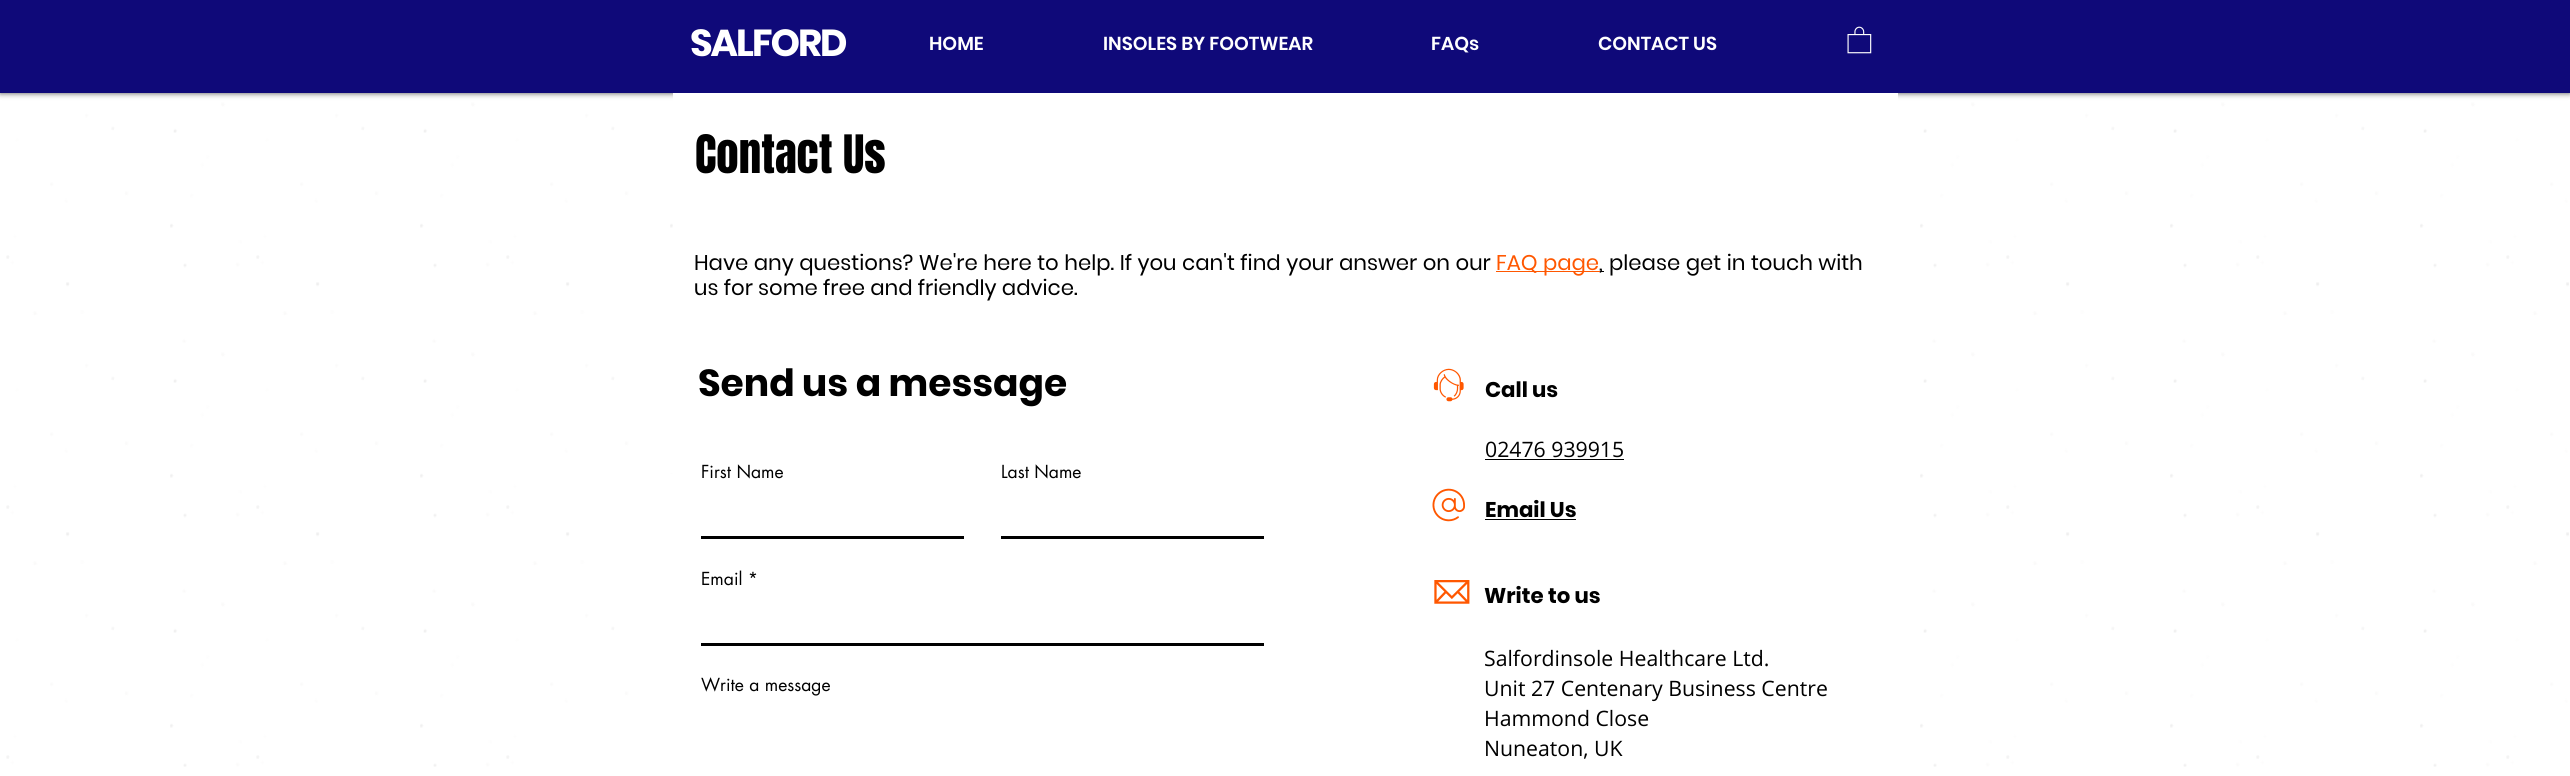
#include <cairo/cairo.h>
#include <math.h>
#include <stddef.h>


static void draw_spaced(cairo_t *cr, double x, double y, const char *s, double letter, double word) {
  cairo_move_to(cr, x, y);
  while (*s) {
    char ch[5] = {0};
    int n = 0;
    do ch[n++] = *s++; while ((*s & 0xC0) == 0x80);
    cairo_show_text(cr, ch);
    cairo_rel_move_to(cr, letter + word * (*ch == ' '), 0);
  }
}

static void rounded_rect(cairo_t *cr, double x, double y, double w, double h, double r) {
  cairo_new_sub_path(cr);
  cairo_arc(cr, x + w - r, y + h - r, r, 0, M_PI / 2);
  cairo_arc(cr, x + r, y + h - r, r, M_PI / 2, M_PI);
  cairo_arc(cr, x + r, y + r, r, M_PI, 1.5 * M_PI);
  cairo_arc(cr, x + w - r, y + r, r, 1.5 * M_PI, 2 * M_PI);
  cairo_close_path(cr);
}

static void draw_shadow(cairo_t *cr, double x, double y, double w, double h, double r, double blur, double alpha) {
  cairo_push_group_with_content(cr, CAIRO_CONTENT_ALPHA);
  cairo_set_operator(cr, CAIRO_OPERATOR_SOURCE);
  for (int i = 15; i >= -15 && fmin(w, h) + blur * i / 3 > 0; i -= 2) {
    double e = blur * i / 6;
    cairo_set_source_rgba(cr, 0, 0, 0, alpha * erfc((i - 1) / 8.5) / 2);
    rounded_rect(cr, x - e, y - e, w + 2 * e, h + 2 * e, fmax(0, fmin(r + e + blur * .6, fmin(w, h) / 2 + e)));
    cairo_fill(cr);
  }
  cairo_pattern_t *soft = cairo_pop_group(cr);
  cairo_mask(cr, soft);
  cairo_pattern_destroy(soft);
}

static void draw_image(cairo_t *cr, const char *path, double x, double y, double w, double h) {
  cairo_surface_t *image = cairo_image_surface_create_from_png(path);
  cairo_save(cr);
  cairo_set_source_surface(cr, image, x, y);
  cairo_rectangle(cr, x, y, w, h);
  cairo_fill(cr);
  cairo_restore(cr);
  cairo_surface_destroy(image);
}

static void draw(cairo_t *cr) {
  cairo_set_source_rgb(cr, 1, 1, 1);
  cairo_paint(cr);
  draw_image(cr, "images/5.png", 6, 102, 2563, 665);
  cairo_set_source_rgb(cr, 0, 0, 0);
  draw_shadow(cr, 0, 0, 2570, 93, 0, 3, 0.7);
  cairo_set_source_rgb(cr, 15 / 255.0, 9 / 255.0, 121 / 255.0);
  cairo_rectangle(cr, 0, 0, 2570, 93);
  cairo_fill(cr);
  draw_image(cr, "images/1.png", 1847, 26, 25, 28);
  cairo_set_source_rgb(cr, 1, 1, 1);
  cairo_rectangle(cr, 673, 93, 1225, 674);
  cairo_fill(cr);
  cairo_set_source_rgb(cr, 1, 87 / 255.0, 0);
  cairo_rectangle(cr, 1496, 271, 104, 1);
  cairo_fill(cr);
  cairo_set_source_rgb(cr, 0, 0, 0);
  cairo_rectangle(cr, 1600, 271, 4, 1);
  cairo_fill(cr);
  cairo_set_source_rgb(cr, 1, 1, 1);
  cairo_rectangle(cr, 670, 474, 3, 254);
  cairo_fill(cr);
  cairo_set_source_rgb(cr, 0, 0, 0);
  cairo_rectangle(cr, 701, 536, 263, 3);
  cairo_fill(cr);
  cairo_rectangle(cr, 1001, 536, 263, 3);
  cairo_fill(cr);
  cairo_rectangle(cr, 701, 643, 563, 3);
  cairo_fill(cr);
  draw_image(cr, "images/2.png", 1433, 368, 31, 34);
  cairo_rectangle(cr, 1485, 459, 139, 1);
  cairo_fill(cr);
  draw_image(cr, "images/3.png", 1432, 488, 33, 34);
  cairo_rectangle(cr, 1485, 519, 91, 1);
  cairo_fill(cr);
  draw_image(cr, "images/4.png", 1434, 580, 36, 24);
  cairo_select_font_face(cr, "Poppins", CAIRO_FONT_SLANT_NORMAL, CAIRO_FONT_WEIGHT_BOLD);
  cairo_set_font_size(cr, 37.5);
  cairo_set_source_rgb(cr, 1, 1, 1);
  draw_spaced(cr, 690, 56, "SALFORD", -2, 0);
  cairo_select_font_face(cr, "Poppins SemiBold", CAIRO_FONT_SLANT_NORMAL, CAIRO_FONT_WEIGHT_NORMAL);
  cairo_set_font_size(cr, 18.75);
  cairo_move_to(cr, 929, 50);
  cairo_show_text(cr, "HOME");
  cairo_move_to(cr, 1103, 50);
  cairo_show_text(cr, "INSOLES BY FOOTWEAR");
  cairo_move_to(cr, 1431, 50);
  cairo_show_text(cr, "FAQs");
  cairo_move_to(cr, 1598, 50);
  cairo_show_text(cr, "CONTACT US");
  cairo_select_font_face(cr, "Anton", CAIRO_FONT_SLANT_NORMAL, CAIRO_FONT_WEIGHT_NORMAL);
  cairo_set_font_size(cr, 45);
  cairo_set_source_rgb(cr, 0, 0, 0);
  cairo_move_to(cr, 695, 173);
  cairo_show_text(cr, "Contact Us");
  cairo_select_font_face(cr, "Poppins", CAIRO_FONT_SLANT_NORMAL, CAIRO_FONT_WEIGHT_NORMAL);
  cairo_set_font_size(cr, 21.25);
  draw_spaced(cr, 694, 270, "Have any questions? We're here to help. If you can't find your answer on our", 0, 0.25);
  cairo_set_source_rgb(cr, 1, 87 / 255.0, 0);
  cairo_move_to(cr, 1496, 270);
  cairo_show_text(cr, "FAQ page");
  cairo_set_source_rgb(cr, 0, 0, 0);
  cairo_move_to(cr, 1599, 270);
  cairo_show_text(cr, ",");
  draw_spaced(cr, 1609, 270, "please get in touch with", 0, 0.25);
  cairo_move_to(cr, 694, 295);
  cairo_show_text(cr, "us for some free and friendly advice.");
  cairo_select_font_face(cr, "Poppins", CAIRO_FONT_SLANT_NORMAL, CAIRO_FONT_WEIGHT_BOLD);
  cairo_set_font_size(cr, 37.5);
  cairo_move_to(cr, 698, 396);
  cairo_show_text(cr, "Send us a message");
  cairo_select_font_face(cr, "futura", CAIRO_FONT_SLANT_NORMAL, CAIRO_FONT_WEIGHT_NORMAL);
  cairo_set_font_size(cr, 17.5);
  cairo_move_to(cr, 701, 478);
  cairo_show_text(cr, "First Name");
  cairo_move_to(cr, 1001, 478);
  cairo_show_text(cr, "Last Name");
  cairo_move_to(cr, 701, 585);
  cairo_show_text(cr, "Email *");
  cairo_move_to(cr, 701, 691);
  cairo_show_text(cr, "Write a message");
  cairo_select_font_face(cr, "Poppins", CAIRO_FONT_SLANT_NORMAL, CAIRO_FONT_WEIGHT_BOLD);
  cairo_set_font_size(cr, 21.25);
  cairo_move_to(cr, 1485, 397);
  cairo_show_text(cr, "Call us");
  cairo_select_font_face(cr, "Open Sans", CAIRO_FONT_SLANT_NORMAL, CAIRO_FONT_WEIGHT_NORMAL);
  cairo_move_to(cr, 1485, 457);
  cairo_show_text(cr, "02476 939915");
  cairo_select_font_face(cr, "Poppins", CAIRO_FONT_SLANT_NORMAL, CAIRO_FONT_WEIGHT_BOLD);
  cairo_move_to(cr, 1485, 517);
  cairo_show_text(cr, "Email Us");
  cairo_move_to(cr, 1484, 603);
  cairo_show_text(cr, "Write to us");
  cairo_select_font_face(cr, "Open Sans", CAIRO_FONT_SLANT_NORMAL, CAIRO_FONT_WEIGHT_NORMAL);
  cairo_move_to(cr, 1484, 666);
  cairo_show_text(cr, "Salfordinsole Healthcare Ltd.");
  cairo_move_to(cr, 1484, 696);
  cairo_show_text(cr, "Unit 27 Centenary Business Centre");
  cairo_move_to(cr, 1484, 726);
  cairo_show_text(cr, "Hammond Close");
  cairo_move_to(cr, 1484, 756);
  cairo_show_text(cr, "Nuneaton, UK");
}

int main(void) {
  cairo_surface_t *surface = cairo_image_surface_create(CAIRO_FORMAT_RGB24, 2570, 776);
  cairo_t *cr = cairo_create(surface);
  cairo_font_options_t *options = cairo_font_options_create();
  cairo_font_options_set_hint_metrics(options, CAIRO_HINT_METRICS_OFF);
  cairo_font_options_set_hint_style(options, CAIRO_HINT_STYLE_NONE);
  cairo_set_font_options(cr, options);
  cairo_set_miter_limit(cr, 4);
  draw(cr);
  cairo_surface_write_to_png(surface, "out.png");
  cairo_font_options_destroy(options);
  cairo_destroy(cr);
  cairo_surface_destroy(surface);
  return 0;
}
